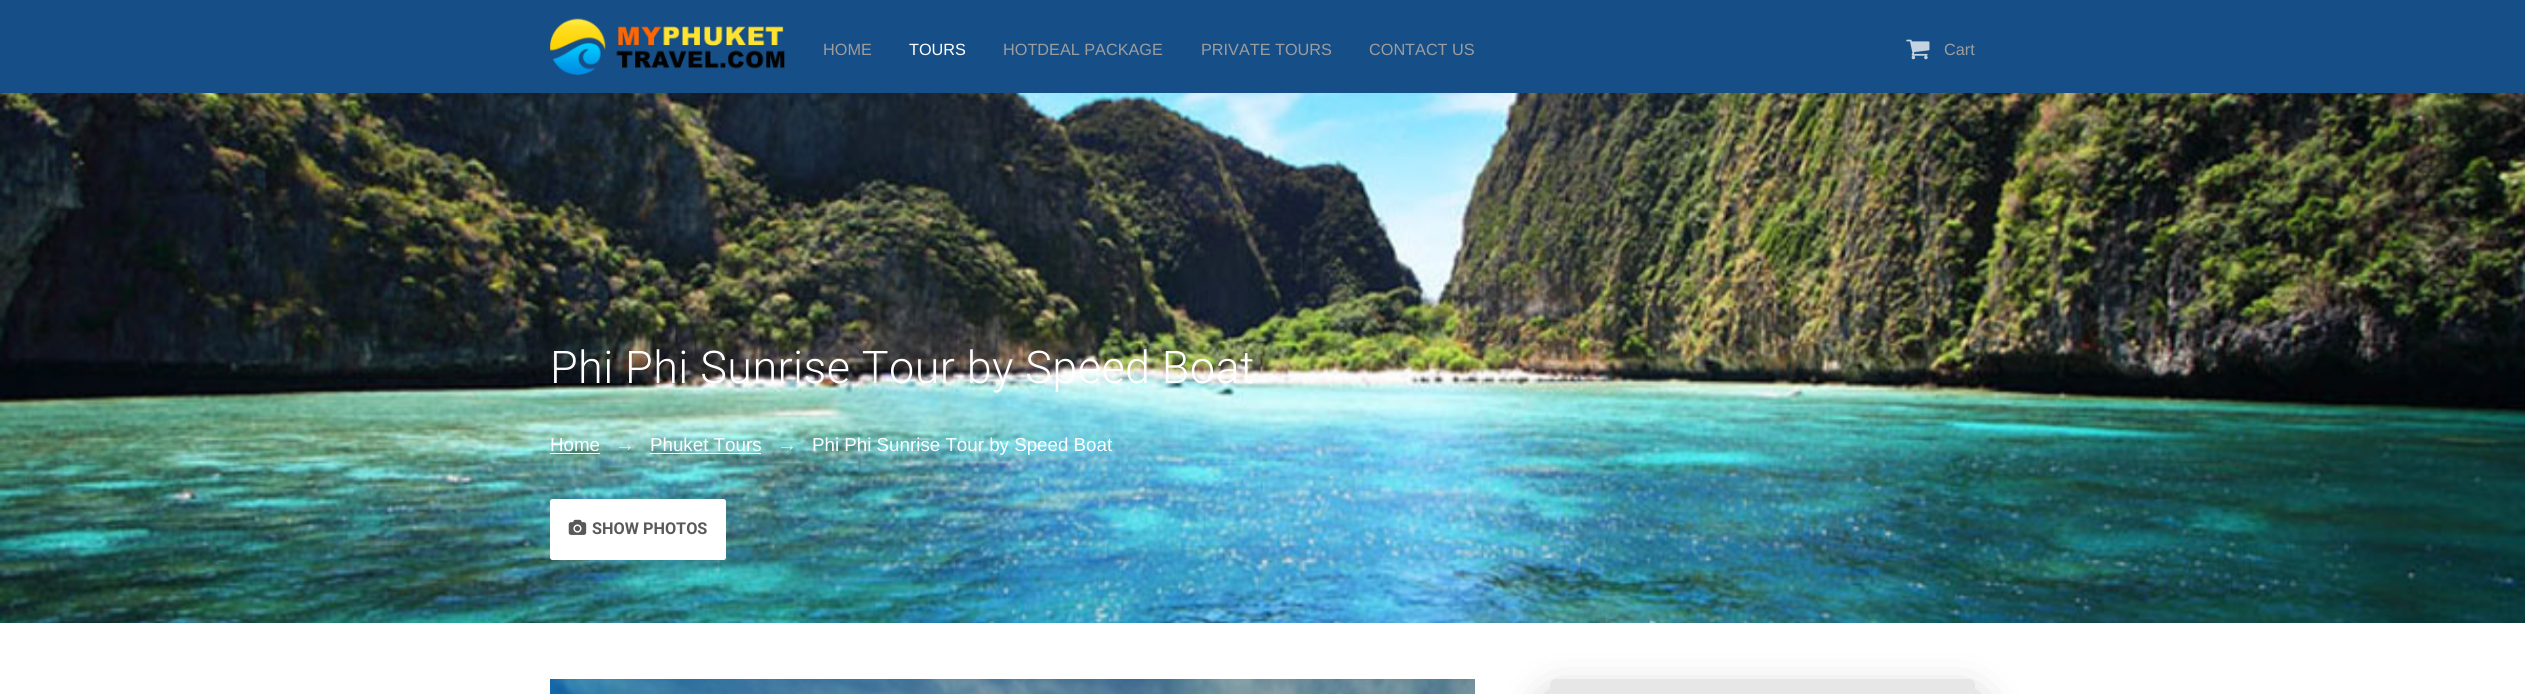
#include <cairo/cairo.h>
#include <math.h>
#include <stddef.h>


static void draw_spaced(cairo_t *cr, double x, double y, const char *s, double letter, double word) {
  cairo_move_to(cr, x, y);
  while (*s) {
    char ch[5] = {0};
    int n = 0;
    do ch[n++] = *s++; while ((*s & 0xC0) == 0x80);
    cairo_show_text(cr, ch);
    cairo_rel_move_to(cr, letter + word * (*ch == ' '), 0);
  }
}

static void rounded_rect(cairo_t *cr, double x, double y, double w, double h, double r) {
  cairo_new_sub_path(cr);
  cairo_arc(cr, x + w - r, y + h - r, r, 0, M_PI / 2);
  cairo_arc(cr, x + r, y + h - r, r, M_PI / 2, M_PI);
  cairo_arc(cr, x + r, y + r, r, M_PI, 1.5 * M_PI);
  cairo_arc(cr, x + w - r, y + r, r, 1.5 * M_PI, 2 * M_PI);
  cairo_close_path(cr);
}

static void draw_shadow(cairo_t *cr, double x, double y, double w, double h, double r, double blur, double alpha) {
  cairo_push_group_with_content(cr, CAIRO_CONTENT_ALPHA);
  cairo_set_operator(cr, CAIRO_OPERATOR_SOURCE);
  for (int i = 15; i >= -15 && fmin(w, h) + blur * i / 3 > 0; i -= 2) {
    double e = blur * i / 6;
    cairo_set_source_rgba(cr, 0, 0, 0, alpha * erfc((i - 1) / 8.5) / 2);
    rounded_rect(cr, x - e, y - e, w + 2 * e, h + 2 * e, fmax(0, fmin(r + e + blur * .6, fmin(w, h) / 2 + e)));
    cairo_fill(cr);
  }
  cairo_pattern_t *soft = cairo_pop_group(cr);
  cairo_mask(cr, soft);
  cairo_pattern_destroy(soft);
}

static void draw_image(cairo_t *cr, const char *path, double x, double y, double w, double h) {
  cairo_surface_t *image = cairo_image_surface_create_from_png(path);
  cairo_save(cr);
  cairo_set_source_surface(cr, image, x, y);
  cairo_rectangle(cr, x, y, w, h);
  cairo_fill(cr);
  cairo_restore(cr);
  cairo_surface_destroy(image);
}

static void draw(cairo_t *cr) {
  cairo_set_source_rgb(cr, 1, 1, 1);
  cairo_paint(cr);
  cairo_set_source_rgb(cr, 22 / 255.0, 78 / 255.0, 135 / 255.0);
  cairo_rectangle(cr, 0, 0, 2525, 93);
  cairo_fill(cr);
  draw_image(cr, "images/1.png", 550, 18, 235, 57);
  draw_image(cr, "images/2.png", 1906, 39, 24, 21);
  draw_image(cr, "images/3.png", 0, 93, 2525, 530);
  cairo_set_source_rgb(cr, 1, 1, 1);
  cairo_rectangle(cr, 550, 453, 50, 1);
  cairo_fill(cr);
  cairo_rectangle(cr, 650, 453, 111, 1);
  cairo_fill(cr);
  rounded_rect(cr, 550, 499, 176, 61, 2.5);
  cairo_fill(cr);
  draw_image(cr, "images/4.png", 568, 519, 19, 16);
  draw_image(cr, "images/5.png", 550, 679, 925, 15);
  cairo_set_source_rgb(cr, 0, 0, 0);
  draw_shadow(cr, 1550, 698, 425, 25, 6, 7.5, 0.22);
  draw_shadow(cr, 1550, 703, 425, 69, 6, 24, 0.3);
  cairo_set_source_rgb(cr, 231 / 255.0, 231 / 255.0, 231 / 255.0);
  rounded_rect(cr, 1550, 679, 425, 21, 6);
  cairo_fill(cr);
  cairo_select_font_face(cr, "Liberation Sans", CAIRO_FONT_SLANT_NORMAL, CAIRO_FONT_WEIGHT_NORMAL);
  cairo_set_font_size(cr, 16.25);
  cairo_set_source_rgb(cr, 157 / 255.0, 157 / 255.0, 157 / 255.0);
  cairo_move_to(cr, 823, 55);
  cairo_show_text(cr, "HOME");
  cairo_set_source_rgb(cr, 1, 1, 1);
  cairo_move_to(cr, 909, 55);
  cairo_show_text(cr, "TOURS");
  cairo_set_source_rgb(cr, 157 / 255.0, 157 / 255.0, 157 / 255.0);
  cairo_move_to(cr, 1003, 55);
  cairo_show_text(cr, "HOTDEAL PACKAGE");
  cairo_move_to(cr, 1201, 55);
  cairo_show_text(cr, "PRIVATE TOURS");
  cairo_move_to(cr, 1369, 55);
  cairo_show_text(cr, "CONTACT US");
  cairo_move_to(cr, 1944, 55);
  cairo_show_text(cr, "Cart");
  cairo_select_font_face(cr, "Roboto Light", CAIRO_FONT_SLANT_NORMAL, CAIRO_FONT_WEIGHT_NORMAL);
  cairo_set_font_size(cr, 45);
  cairo_set_source_rgb(cr, 1, 1, 1);
  draw_spaced(cr, 550, 383, "Phi Phi Sunrise Tour by Speed Boat", 0.4, 0);
  cairo_select_font_face(cr, "Liberation Sans", CAIRO_FONT_SLANT_NORMAL, CAIRO_FONT_WEIGHT_NORMAL);
  cairo_set_font_size(cr, 18.75);
  cairo_move_to(cr, 550, 451);
  cairo_show_text(cr, "Home");
  cairo_set_font_size(cr, 20);
  cairo_set_source_rgb(cr, 230 / 255.0, 242 / 255.0, 241 / 255.0);
  cairo_move_to(cr, 615, 451);
  cairo_show_text(cr, "→");
  cairo_set_font_size(cr, 18.75);
  cairo_set_source_rgb(cr, 1, 1, 1);
  cairo_move_to(cr, 650, 451);
  cairo_show_text(cr, "Phuket Tours");
  cairo_set_font_size(cr, 20);
  cairo_set_source_rgb(cr, 230 / 255.0, 242 / 255.0, 241 / 255.0);
  cairo_move_to(cr, 777, 451);
  cairo_show_text(cr, "→");
  cairo_set_font_size(cr, 18.75);
  cairo_set_source_rgb(cr, 1, 1, 1);
  cairo_move_to(cr, 812, 451);
  cairo_show_text(cr, "Phi Phi Sunrise Tour by Speed Boat");
  cairo_select_font_face(cr, "Roboto", CAIRO_FONT_SLANT_NORMAL, CAIRO_FONT_WEIGHT_BOLD);
  cairo_set_font_size(cr, 16.25);
  cairo_set_source_rgb(cr, 89 / 255.0, 89 / 255.0, 89 / 255.0);
  cairo_move_to(cr, 592, 534);
  cairo_show_text(cr, "SHOW PHOTOS");
}

int main(void) {
  cairo_surface_t *surface = cairo_image_surface_create(CAIRO_FORMAT_RGB24, 2525, 694);
  cairo_t *cr = cairo_create(surface);
  cairo_font_options_t *options = cairo_font_options_create();
  cairo_font_options_set_hint_metrics(options, CAIRO_HINT_METRICS_OFF);
  cairo_font_options_set_hint_style(options, CAIRO_HINT_STYLE_NONE);
  cairo_set_font_options(cr, options);
  cairo_set_miter_limit(cr, 4);
  draw(cr);
  cairo_surface_write_to_png(surface, "out.png");
  cairo_font_options_destroy(options);
  cairo_destroy(cr);
  cairo_surface_destroy(surface);
  return 0;
}
